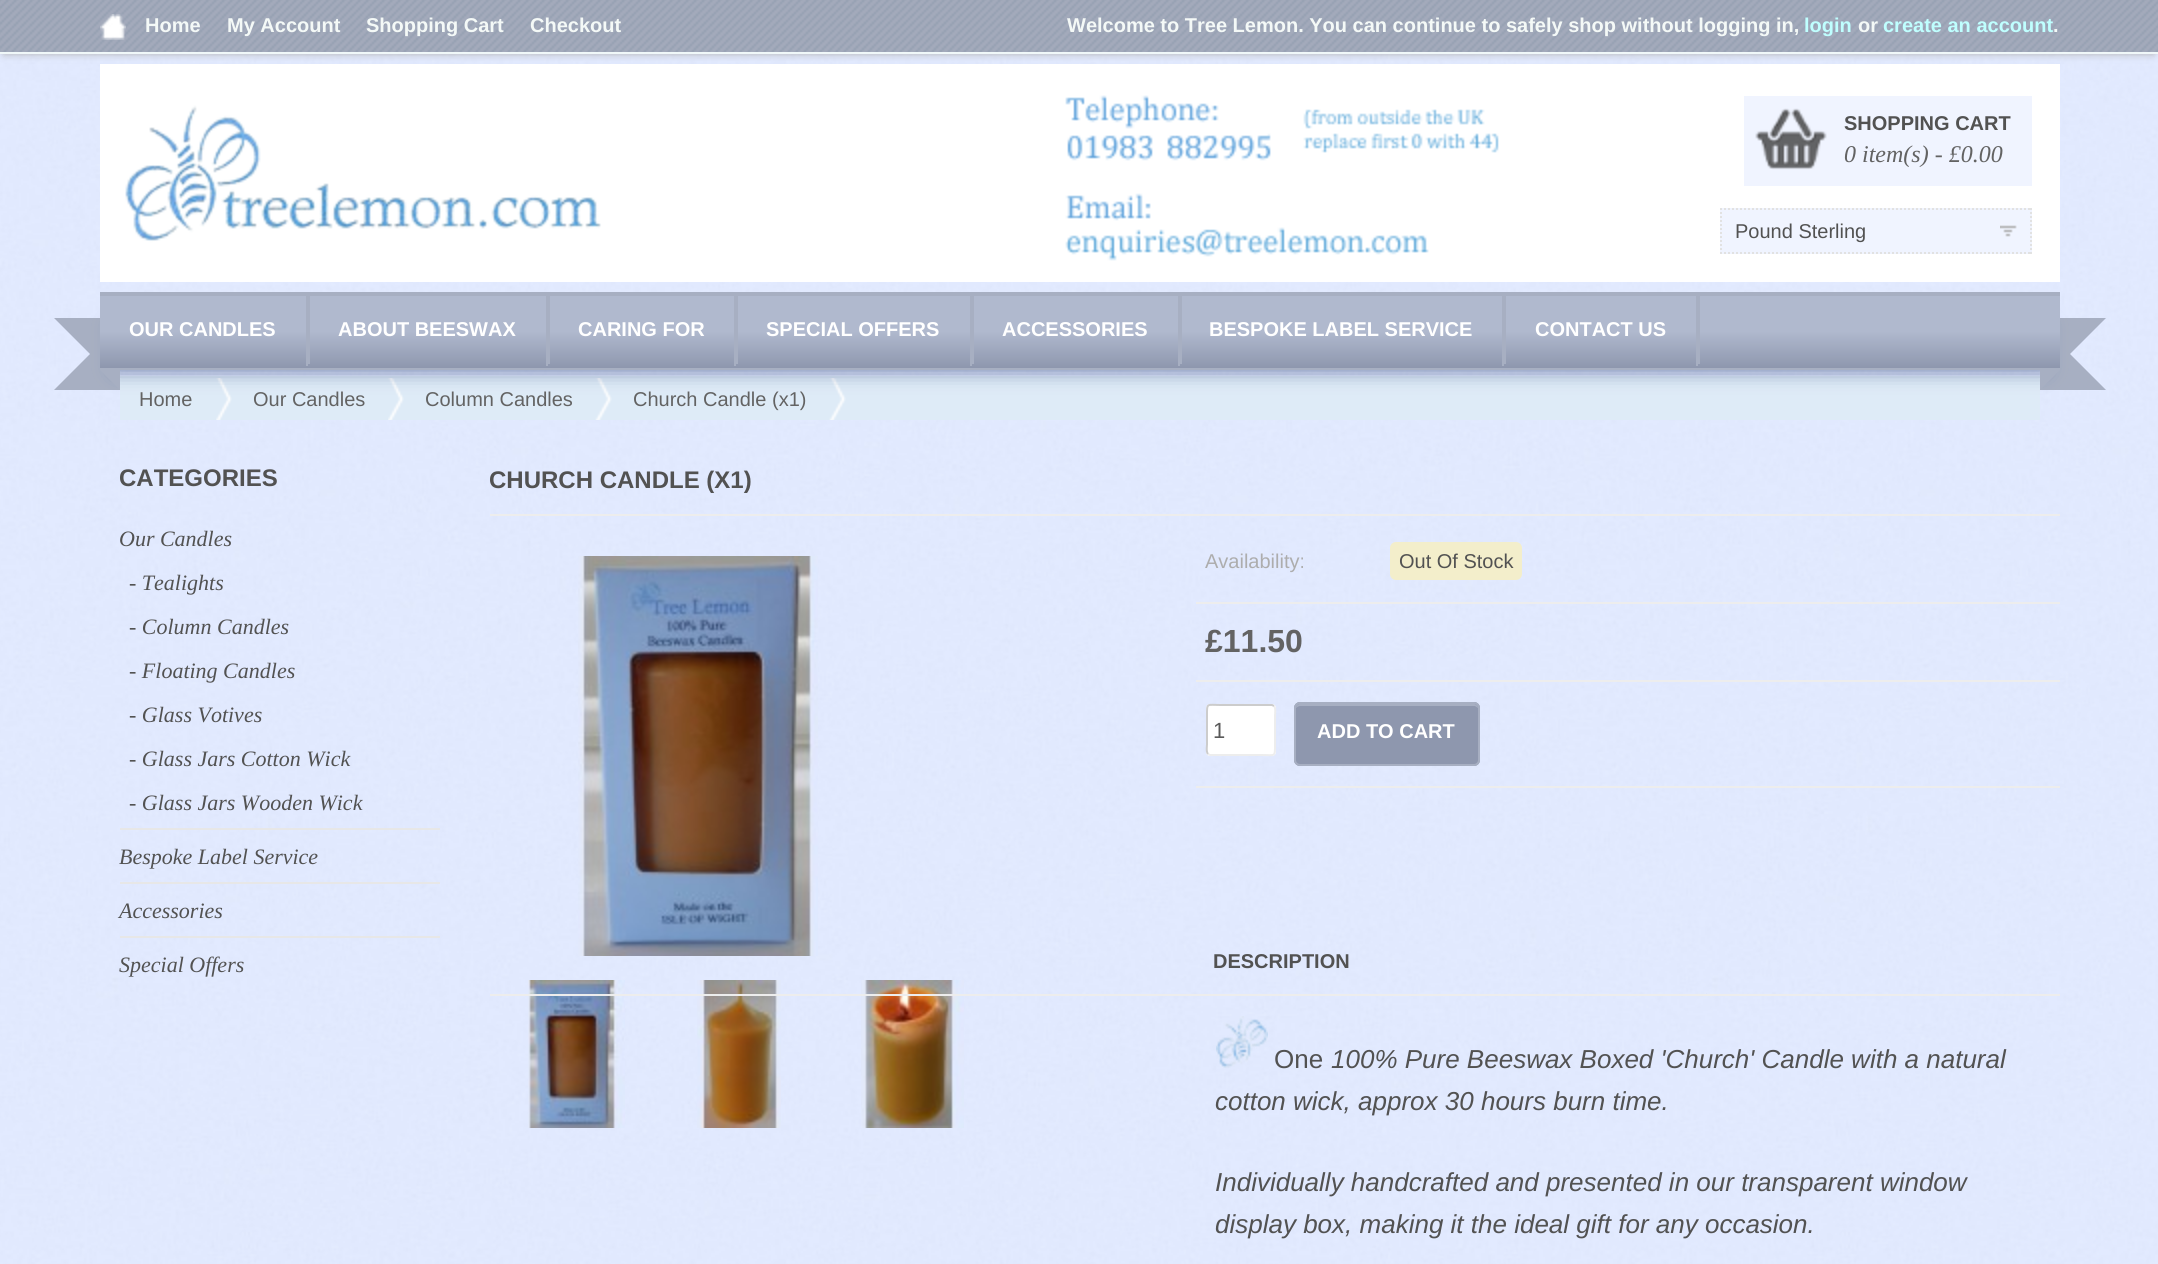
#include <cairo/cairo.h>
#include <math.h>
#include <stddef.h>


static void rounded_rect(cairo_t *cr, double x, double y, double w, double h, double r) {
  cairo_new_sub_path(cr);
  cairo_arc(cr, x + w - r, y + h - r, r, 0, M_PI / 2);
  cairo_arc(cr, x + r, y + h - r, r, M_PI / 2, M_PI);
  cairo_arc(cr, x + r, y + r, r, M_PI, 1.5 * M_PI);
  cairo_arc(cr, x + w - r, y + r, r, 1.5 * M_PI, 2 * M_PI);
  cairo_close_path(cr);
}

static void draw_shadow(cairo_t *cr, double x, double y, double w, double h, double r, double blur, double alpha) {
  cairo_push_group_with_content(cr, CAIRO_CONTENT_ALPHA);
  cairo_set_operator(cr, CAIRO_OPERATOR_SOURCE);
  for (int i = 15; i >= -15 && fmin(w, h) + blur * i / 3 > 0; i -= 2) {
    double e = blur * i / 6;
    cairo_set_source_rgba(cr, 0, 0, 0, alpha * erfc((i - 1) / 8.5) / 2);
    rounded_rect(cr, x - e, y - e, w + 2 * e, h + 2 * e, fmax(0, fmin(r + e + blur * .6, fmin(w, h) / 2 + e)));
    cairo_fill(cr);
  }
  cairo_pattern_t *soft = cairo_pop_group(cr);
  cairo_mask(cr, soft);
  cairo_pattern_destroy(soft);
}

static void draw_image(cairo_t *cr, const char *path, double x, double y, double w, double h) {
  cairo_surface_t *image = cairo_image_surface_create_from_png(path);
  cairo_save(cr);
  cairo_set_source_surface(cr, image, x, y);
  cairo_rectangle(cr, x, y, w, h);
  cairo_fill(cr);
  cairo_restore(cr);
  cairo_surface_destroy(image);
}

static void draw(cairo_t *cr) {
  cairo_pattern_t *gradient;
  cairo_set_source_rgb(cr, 1, 1, 1);
  cairo_paint(cr);
  draw_image(cr, "images/1.png", 0, 54, 2158, 1210);
  cairo_set_source_rgb(cr, 178 / 255.0, 178 / 255.0, 178 / 255.0);
  draw_shadow(cr, 4, 8, 2150, 46, 0, 4, 1);
  draw_image(cr, "images/2.png", 0, 0, 2158, 52);
  cairo_save(cr);
  cairo_rectangle(cr, 0, 0, 2158, 54);
  cairo_clip(cr);
  cairo_set_source_rgb(cr, 240 / 255.0, 248 / 255.0, 249 / 255.0);
  cairo_set_fill_rule(cr, CAIRO_FILL_RULE_EVEN_ODD);
  cairo_new_path(cr);
  cairo_move_to(cr, -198, -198);
  cairo_line_to(cr, 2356, -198);
  cairo_line_to(cr, 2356, 252);
  cairo_line_to(cr, -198, 252);
  cairo_close_path(cr);
  cairo_move_to(cr, 0, -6);
  cairo_line_to(cr, 2158, -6);
  cairo_curve_to(cr, 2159, -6, 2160, -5, 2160, -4);
  cairo_line_to(cr, 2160, 50);
  cairo_curve_to(cr, 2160, 51, 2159, 52, 2158, 52);
  cairo_line_to(cr, 0, 52);
  cairo_curve_to(cr, -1, 52, -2, 51, -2, 50);
  cairo_line_to(cr, -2, -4);
  cairo_curve_to(cr, -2, -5, -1, -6, 0, -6);
  cairo_close_path(cr);
  cairo_fill(cr);
  cairo_restore(cr);
  draw_image(cr, "images/3.png", 100, 14, 26, 26);
  cairo_set_source_rgb(cr, 1, 1, 1);
  cairo_rectangle(cr, 100, 64, 1960, 218);
  cairo_fill(cr);
  draw_image(cr, "images/4.png", 125, 95, 1374, 166);
  cairo_set_source_rgb(cr, 240 / 255.0, 244 / 255.0, 1);
  cairo_rectangle(cr, 1744, 96, 288, 90);
  cairo_fill(cr);
  draw_image(cr, "images/5.png", 1755, 108, 72, 62);
  cairo_rectangle(cr, 1720, 208, 312, 46);
  cairo_fill(cr);
  draw_image(cr, "images/6.png", 2000, 225, 17, 12);
  cairo_new_path(cr);
  cairo_move_to(cr, 1720, 209);
  cairo_line_to(cr, 2032, 209);
  cairo_set_source_rgb(cr, 226 / 255.0, 226 / 255.0, 226 / 255.0);
  cairo_set_dash(cr, (double[]){2, 2}, 2, 0);
  cairo_stroke(cr);
  cairo_new_path(cr);
  cairo_move_to(cr, 2031, 208);
  cairo_line_to(cr, 2031, 254);
  cairo_stroke(cr);
  cairo_new_path(cr);
  cairo_move_to(cr, 1720, 253);
  cairo_line_to(cr, 2032, 253);
  cairo_stroke(cr);
  cairo_new_path(cr);
  cairo_move_to(cr, 1721, 208);
  cairo_line_to(cr, 1721, 254);
  cairo_stroke(cr);
  cairo_set_source_rgb(cr, 167 / 255.0, 175 / 255.0, 194 / 255.0);
  cairo_new_path(cr);
  cairo_move_to(cr, 54, 318);
  cairo_line_to(cr, 120, 318);
  cairo_line_to(cr, 90, 354);
  cairo_close_path(cr);
  cairo_fill(cr);
  cairo_rectangle(cr, 90, 318, 30, 72);
  cairo_fill(cr);
  cairo_new_path(cr);
  cairo_move_to(cr, 120, 390);
  cairo_line_to(cr, 54, 390);
  cairo_line_to(cr, 90, 354);
  cairo_close_path(cr);
  cairo_fill(cr);
  cairo_new_path(cr);
  cairo_move_to(cr, 2040, 318);
  cairo_line_to(cr, 2106, 318);
  cairo_line_to(cr, 2070, 354);
  cairo_close_path(cr);
  cairo_fill(cr);
  cairo_new_path(cr);
  cairo_move_to(cr, 2106, 390);
  cairo_line_to(cr, 2040, 390);
  cairo_line_to(cr, 2070, 354);
  cairo_close_path(cr);
  cairo_fill(cr);
  cairo_rectangle(cr, 2040, 318, 30, 72);
  cairo_fill(cr);
  cairo_set_source_rgb(cr, 222 / 255.0, 235 / 255.0, 247 / 255.0);
  cairo_rectangle(cr, 120, 376, 1920, 44);
  cairo_fill(cr);
  draw_image(cr, "images/7.png", 216, 378, 16, 42);
  draw_image(cr, "images/8.png", 388, 378, 16, 42);
  draw_image(cr, "images/9.png", 595, 378, 17, 42);
  draw_image(cr, "images/9.png", 829, 378, 17, 42);
  cairo_set_source_rgb(cr, 102 / 255.0, 119 / 255.0, 160 / 255.0);
  draw_shadow(cr, 116, 324, 1928, 46, 0, 10, 1);
  gradient = cairo_pattern_create_linear(1080, 294, 1080, 368);
  cairo_pattern_add_color_stop_rgba(gradient, 0.5, 176 / 255.0, 185 / 255.0, 206 / 255.0, 1);
  cairo_pattern_add_color_stop_rgba(gradient, 1, 142 / 255.0, 151 / 255.0, 174 / 255.0, 1);
  cairo_set_source(cr, gradient);
  cairo_pattern_destroy(gradient);
  cairo_rectangle(cr, 100, 296, 1960, 72);
  cairo_fill(cr);
  cairo_save(cr);
  cairo_rectangle(cr, 100, 294, 1960, 74);
  cairo_clip(cr);
  cairo_set_source_rgb(cr, 167 / 255.0, 175 / 255.0, 194 / 255.0);
  cairo_set_fill_rule(cr, CAIRO_FILL_RULE_EVEN_ODD);
  cairo_new_path(cr);
  cairo_move_to(cr, -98, 96);
  cairo_line_to(cr, 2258, 96);
  cairo_line_to(cr, 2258, 566);
  cairo_line_to(cr, -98, 566);
  cairo_close_path(cr);
  cairo_move_to(cr, 100, 296);
  cairo_line_to(cr, 2060, 296);
  cairo_curve_to(cr, 2061, 296, 2062, 297, 2062, 298);
  cairo_line_to(cr, 2062, 372);
  cairo_curve_to(cr, 2062, 373, 2061, 374, 2060, 374);
  cairo_line_to(cr, 100, 374);
  cairo_curve_to(cr, 99, 374, 98, 373, 98, 372);
  cairo_line_to(cr, 98, 298);
  cairo_curve_to(cr, 98, 297, 99, 296, 100, 296);
  cairo_close_path(cr);
  cairo_fill(cr);
  cairo_restore(cr);
  cairo_set_source_rgb(cr, 167 / 255.0, 175 / 255.0, 194 / 255.0);
  cairo_rectangle(cr, 100, 292, 1960, 2);
  cairo_fill(cr);
  cairo_rectangle(cr, 100, 368, 1960, 2);
  cairo_fill(cr);
  cairo_rectangle(cr, 308, 296, 2, 68);
  cairo_fill(cr);
  cairo_rectangle(cr, 306, 294, 2, 72);
  cairo_fill(cr);
  cairo_rectangle(cr, 548, 296, 2, 68);
  cairo_fill(cr);
  cairo_rectangle(cr, 546, 294, 2, 72);
  cairo_fill(cr);
  cairo_rectangle(cr, 736, 296, 2, 68);
  cairo_fill(cr);
  cairo_rectangle(cr, 734, 294, 2, 72);
  cairo_fill(cr);
  cairo_rectangle(cr, 972, 296, 2, 68);
  cairo_fill(cr);
  cairo_rectangle(cr, 970, 294, 2, 72);
  cairo_fill(cr);
  cairo_rectangle(cr, 1180, 296, 2, 68);
  cairo_fill(cr);
  cairo_rectangle(cr, 1178, 294, 2, 72);
  cairo_fill(cr);
  cairo_rectangle(cr, 1504, 296, 2, 68);
  cairo_fill(cr);
  cairo_rectangle(cr, 1502, 294, 2, 72);
  cairo_fill(cr);
  cairo_rectangle(cr, 1698, 296, 2, 68);
  cairo_fill(cr);
  cairo_rectangle(cr, 1696, 294, 2, 72);
  cairo_fill(cr);
  cairo_new_path(cr);
  cairo_move_to(cr, 100, 370);
  cairo_line_to(cr, 120, 370);
  cairo_line_to(cr, 120, 390);
  cairo_close_path(cr);
  cairo_fill(cr);
  cairo_new_path(cr);
  cairo_move_to(cr, 2040, 370);
  cairo_line_to(cr, 2060, 370);
  cairo_line_to(cr, 2040, 390);
  cairo_close_path(cr);
  cairo_fill(cr);
  cairo_set_source_rgb(cr, 231 / 255.0, 231 / 255.0, 231 / 255.0);
  cairo_rectangle(cr, 120, 828, 320, 2);
  cairo_fill(cr);
  cairo_rectangle(cr, 120, 882, 320, 2);
  cairo_fill(cr);
  cairo_rectangle(cr, 120, 936, 320, 2);
  cairo_fill(cr);
  cairo_set_source_rgb(cr, 237 / 255.0, 237 / 255.0, 237 / 255.0);
  cairo_rectangle(cr, 490, 514, 1570, 2);
  cairo_fill(cr);
  draw_image(cr, "images/10.png", 578, 556, 240, 400);
  draw_image(cr, "images/11.png", 528, 980, 97, 148);
  draw_image(cr, "images/12.png", 697, 980, 84, 148);
  draw_image(cr, "images/13.png", 861, 980, 103, 148);
  cairo_rectangle(cr, 1196, 602, 864, 2);
  cairo_fill(cr);
  cairo_set_source_rgb(cr, 243 / 255.0, 238 / 255.0, 203 / 255.0);
  rounded_rect(cr, 1390, 542, 132, 38, 6);
  cairo_fill(cr);
  cairo_set_source_rgb(cr, 237 / 255.0, 237 / 255.0, 237 / 255.0);
  cairo_rectangle(cr, 1196, 680, 864, 2);
  cairo_fill(cr);
  cairo_rectangle(cr, 1196, 786, 864, 2);
  cairo_fill(cr);
  cairo_set_source_rgb(cr, 1, 1, 1);
  rounded_rect(cr, 1206, 704, 70, 52, 4);
  cairo_fill(cr);
  cairo_new_path(cr);
  cairo_move_to(cr, 1274, 706);
  cairo_curve_to(cr, 1276, 708, 1275, 714.5, 1275, 715.5);
  cairo_line_to(cr, 1275, 744.5);
  cairo_curve_to(cr, 1275, 757.5, 1275.5, 755, 1261.5, 755);
  cairo_line_to(cr, 1210, 755);
  cairo_line_to(cr, 1208, 754);
  cairo_set_source_rgb(cr, 237 / 255.0, 237 / 255.0, 237 / 255.0);
  cairo_set_dash(cr, NULL, 0, 0);
  cairo_stroke(cr);
  cairo_new_path(cr);
  cairo_move_to(cr, 1208, 754);
  cairo_curve_to(cr, 1206, 752, 1207, 745.5, 1207, 744.5);
  cairo_line_to(cr, 1207, 715.5);
  cairo_curve_to(cr, 1207, 702.5, 1206.5, 705, 1220.5, 705);
  cairo_line_to(cr, 1272, 705);
  cairo_line_to(cr, 1274, 706);
  cairo_set_source_rgb(cr, 204 / 255.0, 204 / 255.0, 204 / 255.0);
  cairo_stroke(cr);
  cairo_set_source_rgb(cr, 142 / 255.0, 151 / 255.0, 174 / 255.0);
  rounded_rect(cr, 1294, 702, 186, 64, 6);
  cairo_fill(cr);
  cairo_set_source_rgb(cr, 167 / 255.0, 175 / 255.0, 194 / 255.0);
  cairo_new_path(cr);
  cairo_move_to(cr, 1300, 706);
  cairo_line_to(cr, 1475, 706);
  cairo_line_to(cr, 1478, 708);
  cairo_curve_to(cr, 1478, 706, 1476, 704, 1474, 704);
  cairo_line_to(cr, 1300, 704);
  cairo_curve_to(cr, 1298, 704, 1296, 706, 1296, 708);
  cairo_curve_to(cr, 1297, 707, 1299, 706, 1300, 706);
  cairo_close_path(cr);
  cairo_fill(cr);
  rounded_rect(cr, 1295, 703, 184, 62, 5);
  cairo_stroke(cr);
  cairo_set_source_rgb(cr, 222 / 255.0, 230 / 255.0, 251 / 255.0);
  cairo_rectangle(cr, 1706, 993, 1, 1);
  cairo_fill(cr);
  cairo_set_source_rgb(cr, 237 / 255.0, 237 / 255.0, 237 / 255.0);
  cairo_rectangle(cr, 490, 994, 1570, 2);
  cairo_fill(cr);
  draw_image(cr, "images/14.png", 1216, 1016, 52, 52);
  cairo_select_font_face(cr, "Liberation Sans", CAIRO_FONT_SLANT_NORMAL, CAIRO_FONT_WEIGHT_BOLD);
  cairo_set_font_size(cr, 20);
  cairo_set_source_rgb(cr, 244 / 255.0, 249 / 255.0, 247 / 255.0);
  cairo_move_to(cr, 145, 32);
  cairo_show_text(cr, "Home");
  cairo_move_to(cr, 227, 32);
  cairo_show_text(cr, "My Account");
  cairo_move_to(cr, 366, 32);
  cairo_show_text(cr, "Shopping Cart");
  cairo_move_to(cr, 530, 32);
  cairo_show_text(cr, "Checkout");
  cairo_move_to(cr, 1067, 32);
  cairo_show_text(cr, "Welcome to Tree Lemon. You can continue to safely shop without logging in,");
  cairo_set_source_rgb(cr, 191 / 255.0, 1, 1);
  cairo_move_to(cr, 1804, 32);
  cairo_show_text(cr, "login");
  cairo_set_source_rgb(cr, 244 / 255.0, 249 / 255.0, 247 / 255.0);
  cairo_move_to(cr, 1858, 32);
  cairo_show_text(cr, "or");
  cairo_set_source_rgb(cr, 191 / 255.0, 1, 1);
  cairo_move_to(cr, 1883, 32);
  cairo_show_text(cr, "create an account");
  cairo_set_source_rgb(cr, 244 / 255.0, 249 / 255.0, 247 / 255.0);
  cairo_move_to(cr, 2053, 32);
  cairo_show_text(cr, ".");
  cairo_set_source_rgb(cr, 82 / 255.0, 82 / 255.0, 82 / 255.0);
  cairo_move_to(cr, 1844, 130);
  cairo_show_text(cr, "SHOPPING CART");
  cairo_select_font_face(cr, "Liberation Serif", CAIRO_FONT_SLANT_ITALIC, CAIRO_FONT_WEIGHT_NORMAL);
  cairo_set_font_size(cr, 24);
  cairo_set_source_rgb(cr, 99 / 255.0, 99 / 255.0, 99 / 255.0);
  cairo_move_to(cr, 1844, 162);
  cairo_show_text(cr, "0 item(s) - £0.00");
  cairo_select_font_face(cr, "Liberation Sans", CAIRO_FONT_SLANT_NORMAL, CAIRO_FONT_WEIGHT_NORMAL);
  cairo_set_font_size(cr, 20);
  cairo_set_source_rgb(cr, 82 / 255.0, 82 / 255.0, 82 / 255.0);
  cairo_move_to(cr, 1735, 238);
  cairo_show_text(cr, "Pound Sterling");
  cairo_select_font_face(cr, "Liberation Sans", CAIRO_FONT_SLANT_NORMAL, CAIRO_FONT_WEIGHT_BOLD);
  cairo_set_source_rgb(cr, 1, 1, 1);
  cairo_move_to(cr, 129, 336);
  cairo_show_text(cr, "OUR CANDLES");
  cairo_move_to(cr, 338, 336);
  cairo_show_text(cr, "ABOUT BEESWAX");
  cairo_move_to(cr, 578, 336);
  cairo_show_text(cr, "CARING FOR");
  cairo_move_to(cr, 766, 336);
  cairo_show_text(cr, "SPECIAL OFFERS");
  cairo_move_to(cr, 1002, 336);
  cairo_show_text(cr, "ACCESSORIES");
  cairo_move_to(cr, 1209, 336);
  cairo_show_text(cr, "BESPOKE LABEL SERVICE");
  cairo_move_to(cr, 1535, 336);
  cairo_show_text(cr, "CONTACT US");
  cairo_select_font_face(cr, "Liberation Sans", CAIRO_FONT_SLANT_NORMAL, CAIRO_FONT_WEIGHT_NORMAL);
  cairo_set_source_rgb(cr, 99 / 255.0, 99 / 255.0, 99 / 255.0);
  cairo_move_to(cr, 139, 406);
  cairo_show_text(cr, "Home");
  cairo_move_to(cr, 253, 406);
  cairo_show_text(cr, "Our Candles");
  cairo_move_to(cr, 425, 406);
  cairo_show_text(cr, "Column Candles");
  cairo_move_to(cr, 633, 406);
  cairo_show_text(cr, "Church Candle (x1)");
  cairo_select_font_face(cr, "Liberation Sans", CAIRO_FONT_SLANT_NORMAL, CAIRO_FONT_WEIGHT_BOLD);
  cairo_set_font_size(cr, 24);
  cairo_set_source_rgb(cr, 82 / 255.0, 82 / 255.0, 82 / 255.0);
  cairo_move_to(cr, 119, 486);
  cairo_show_text(cr, "CATEGORIES");
  cairo_select_font_face(cr, "Liberation Serif", CAIRO_FONT_SLANT_ITALIC, CAIRO_FONT_WEIGHT_NORMAL);
  cairo_set_font_size(cr, 22);
  cairo_move_to(cr, 119, 546);
  cairo_show_text(cr, "Our Candles");
  cairo_move_to(cr, 129, 590);
  cairo_show_text(cr, "- Tealights");
  cairo_move_to(cr, 129, 634);
  cairo_show_text(cr, "- Column Candles");
  cairo_move_to(cr, 129, 678);
  cairo_show_text(cr, "- Floating Candles");
  cairo_move_to(cr, 129, 722);
  cairo_show_text(cr, "- Glass Votives");
  cairo_move_to(cr, 129, 766);
  cairo_show_text(cr, "- Glass Jars Cotton Wick");
  cairo_move_to(cr, 129, 810);
  cairo_show_text(cr, "- Glass Jars Wooden Wick");
  cairo_move_to(cr, 119, 864);
  cairo_show_text(cr, "Bespoke Label Service");
  cairo_move_to(cr, 119, 918);
  cairo_show_text(cr, "Accessories");
  cairo_move_to(cr, 119, 972);
  cairo_show_text(cr, "Special Offers");
  cairo_select_font_face(cr, "Liberation Sans", CAIRO_FONT_SLANT_NORMAL, CAIRO_FONT_WEIGHT_BOLD);
  cairo_set_font_size(cr, 24);
  cairo_move_to(cr, 489, 488);
  cairo_show_text(cr, "CHURCH CANDLE (X1)");
  cairo_select_font_face(cr, "Liberation Sans", CAIRO_FONT_SLANT_NORMAL, CAIRO_FONT_WEIGHT_NORMAL);
  cairo_set_font_size(cr, 20);
  cairo_set_source_rgb(cr, 173 / 255.0, 173 / 255.0, 173 / 255.0);
  cairo_move_to(cr, 1205, 568);
  cairo_show_text(cr, "Availability:");
  cairo_set_source_rgb(cr, 82 / 255.0, 82 / 255.0, 82 / 255.0);
  cairo_move_to(cr, 1399, 568);
  cairo_show_text(cr, "Out Of Stock");
  cairo_select_font_face(cr, "Liberation Sans", CAIRO_FONT_SLANT_NORMAL, CAIRO_FONT_WEIGHT_BOLD);
  cairo_set_font_size(cr, 32);
  cairo_set_source_rgb(cr, 99 / 255.0, 99 / 255.0, 99 / 255.0);
  cairo_move_to(cr, 1205, 652);
  cairo_show_text(cr, "£11.50");
  cairo_select_font_face(cr, "Liberation Sans", CAIRO_FONT_SLANT_NORMAL, CAIRO_FONT_WEIGHT_NORMAL);
  cairo_set_font_size(cr, 22);
  cairo_set_source_rgb(cr, 89 / 255.0, 89 / 255.0, 89 / 255.0);
  cairo_move_to(cr, 1213, 738);
  cairo_show_text(cr, "1");
  cairo_select_font_face(cr, "Liberation Sans", CAIRO_FONT_SLANT_NORMAL, CAIRO_FONT_WEIGHT_BOLD);
  cairo_set_font_size(cr, 20);
  cairo_set_source_rgb(cr, 1, 1, 1);
  cairo_move_to(cr, 1317, 738);
  cairo_show_text(cr, "ADD TO CART");
  cairo_set_source_rgb(cr, 82 / 255.0, 82 / 255.0, 82 / 255.0);
  cairo_move_to(cr, 1213, 968);
  cairo_show_text(cr, "DESCRIPTION");
  cairo_select_font_face(cr, "Liberation Sans", CAIRO_FONT_SLANT_NORMAL, CAIRO_FONT_WEIGHT_NORMAL);
  cairo_set_font_size(cr, 26);
  cairo_move_to(cr, 1274, 1068);
  cairo_show_text(cr, "One");
  cairo_select_font_face(cr, "Liberation Sans", CAIRO_FONT_SLANT_ITALIC, CAIRO_FONT_WEIGHT_NORMAL);
  cairo_move_to(cr, 1331, 1068);
  cairo_show_text(cr, "100% Pure Beeswax Boxed 'Church' Candle with a natural");
  cairo_move_to(cr, 1215, 1110);
  cairo_show_text(cr, "cotton wick, approx 30 hours burn time.");
  cairo_move_to(cr, 1215, 1191);
  cairo_show_text(cr, "Individually handcrafted and presented in our transparent window");
  cairo_move_to(cr, 1215, 1233);
  cairo_show_text(cr, "display box, making it the ideal gift for any occasion.");
}

int main(void) {
  cairo_surface_t *surface = cairo_image_surface_create(CAIRO_FORMAT_RGB24, 2158, 1264);
  cairo_t *cr = cairo_create(surface);
  cairo_font_options_t *options = cairo_font_options_create();
  cairo_font_options_set_hint_metrics(options, CAIRO_HINT_METRICS_OFF);
  cairo_font_options_set_hint_style(options, CAIRO_HINT_STYLE_NONE);
  cairo_set_font_options(cr, options);
  cairo_set_miter_limit(cr, 4);
  draw(cr);
  cairo_surface_write_to_png(surface, "out.png");
  cairo_font_options_destroy(options);
  cairo_destroy(cr);
  cairo_surface_destroy(surface);
  return 0;
}
